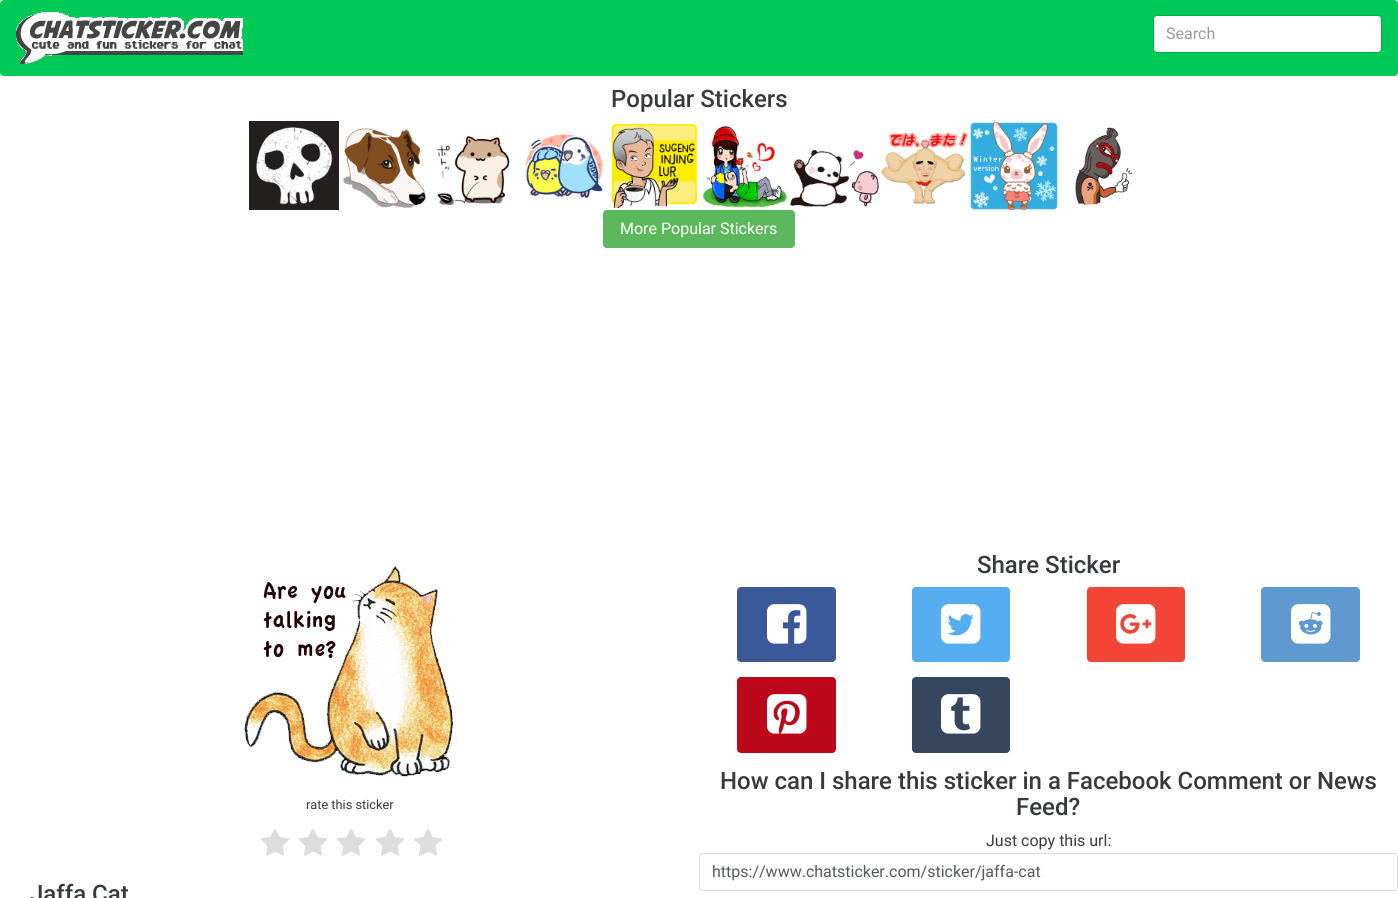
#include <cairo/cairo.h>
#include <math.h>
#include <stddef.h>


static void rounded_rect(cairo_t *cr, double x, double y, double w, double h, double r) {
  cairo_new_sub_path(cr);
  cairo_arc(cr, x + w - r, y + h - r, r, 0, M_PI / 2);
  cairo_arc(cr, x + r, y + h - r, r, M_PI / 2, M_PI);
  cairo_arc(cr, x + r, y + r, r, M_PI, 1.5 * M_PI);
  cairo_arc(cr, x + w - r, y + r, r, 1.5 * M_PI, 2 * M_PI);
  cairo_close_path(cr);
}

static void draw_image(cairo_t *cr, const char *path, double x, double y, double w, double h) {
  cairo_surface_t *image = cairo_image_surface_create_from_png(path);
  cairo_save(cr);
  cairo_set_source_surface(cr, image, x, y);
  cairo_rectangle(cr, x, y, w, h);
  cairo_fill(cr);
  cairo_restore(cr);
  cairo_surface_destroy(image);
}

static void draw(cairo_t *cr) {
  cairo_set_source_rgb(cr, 1, 1, 1);
  cairo_paint(cr);
  cairo_set_source_rgb(cr, 0, 202 / 255.0, 87 / 255.0);
  rounded_rect(cr, 0, 0, 1398, 76, 4);
  cairo_fill(cr);
  draw_image(cr, "images/1.png", 16, 12, 227, 52);
  cairo_set_source_rgb(cr, 1, 1, 1);
  rounded_rect(cr, 1154, 16, 227, 36, 3);
  cairo_fill(cr);
  rounded_rect(cr, 1153.5, 15.5, 228, 37, 3.5);
  cairo_set_source_rgba(cr, 0, 0, 0, 0.15);
  cairo_set_line_width(cr, 1);
  cairo_stroke(cr);
  draw_image(cr, "images/2.png", 249, 121, 90, 89);
  draw_image(cr, "images/3.png", 343, 128, 83, 80);
  draw_image(cr, "images/4.png", 437, 136, 73, 70);
  draw_image(cr, "images/5.png", 525, 134, 78, 65);
  draw_image(cr, "images/6.png", 611, 124, 87, 85);
  draw_image(cr, "images/7.png", 702, 126, 86, 82);
  draw_image(cr, "images/8.png", 790, 149, 89, 58);
  draw_image(cr, "images/9.png", 880, 132, 88, 73);
  draw_image(cr, "images/10.png", 970, 121, 88, 89);
  draw_image(cr, "images/11.png", 1075, 127, 58, 78);
  cairo_set_source_rgb(cr, 92 / 255.0, 184 / 255.0, 92 / 255.0);
  rounded_rect(cr, 603.5, 210.5, 191, 37, 3.5);
  cairo_fill_preserve(cr);
  cairo_stroke(cr);
  draw_image(cr, "images/12.png", 244, 566, 210, 211);
  draw_image(cr, "images/13.png", 261, 828, 28, 28);
  draw_image(cr, "images/13.png", 299, 828, 28, 28);
  draw_image(cr, "images/13.png", 337, 828, 28, 28);
  draw_image(cr, "images/13.png", 376, 828, 28, 28);
  draw_image(cr, "images/13.png", 414, 828, 28, 28);
  draw_image(cr, "images/14.png", 261, 829, 14, 27);
  draw_image(cr, "images/14.png", 299, 829, 14, 27);
  draw_image(cr, "images/14.png", 337, 829, 14, 27);
  draw_image(cr, "images/14.png", 376, 829, 14, 27);
  draw_image(cr, "images/14.png", 414, 829, 14, 27);
  cairo_set_source_rgb(cr, 59 / 255.0, 89 / 255.0, 152 / 255.0);
  rounded_rect(cr, 737.5, 587.5, 98, 74, 3.5);
  cairo_fill_preserve(cr);
  cairo_stroke(cr);
  draw_image(cr, "images/15.png", 767, 604, 40, 40);
  cairo_set_source_rgb(cr, 85 / 255.0, 172 / 255.0, 238 / 255.0);
  rounded_rect(cr, 912.5, 587.5, 97, 74, 3.5);
  cairo_fill_preserve(cr);
  cairo_stroke(cr);
  draw_image(cr, "images/16.png", 941, 604, 40, 40);
  cairo_set_source_rgb(cr, 242 / 255.0, 69 / 255.0, 54 / 255.0);
  rounded_rect(cr, 1087.5, 587.5, 97, 74, 3.5);
  cairo_fill_preserve(cr);
  cairo_stroke(cr);
  draw_image(cr, "images/17.png", 1116, 604, 40, 40);
  cairo_set_source_rgb(cr, 95 / 255.0, 153 / 255.0, 207 / 255.0);
  rounded_rect(cr, 1261.5, 587.5, 98, 74, 3.5);
  cairo_fill_preserve(cr);
  cairo_stroke(cr);
  draw_image(cr, "images/18.png", 1291, 604, 40, 40);
  cairo_set_source_rgb(cr, 189 / 255.0, 8 / 255.0, 28 / 255.0);
  rounded_rect(cr, 737.5, 677.5, 98, 75, 3.5);
  cairo_fill_preserve(cr);
  cairo_stroke(cr);
  draw_image(cr, "images/19.png", 767, 694, 40, 40);
  cairo_set_source_rgb(cr, 54 / 255.0, 70 / 255.0, 93 / 255.0);
  rounded_rect(cr, 912.5, 677.5, 97, 75, 3.5);
  cairo_fill_preserve(cr);
  cairo_stroke(cr);
  draw_image(cr, "images/20.png", 941, 694, 40, 40);
  rounded_rect(cr, 699.5, 853.5, 698, 37, 3.5);
  cairo_set_source_rgb(cr, 217 / 255.0, 217 / 255.0, 217 / 255.0);
  cairo_stroke(cr);
  cairo_select_font_face(cr, "Roboto", CAIRO_FONT_SLANT_NORMAL, CAIRO_FONT_WEIGHT_NORMAL);
  cairo_set_font_size(cr, 16);
  cairo_set_source_rgb(cr, 153 / 255.0, 153 / 255.0, 153 / 255.0);
  cairo_move_to(cr, 1166, 39);
  cairo_show_text(cr, "Search");
  cairo_select_font_face(cr, "Roboto Medium", CAIRO_FONT_SLANT_NORMAL, CAIRO_FONT_WEIGHT_NORMAL);
  cairo_set_font_size(cr, 24);
  cairo_set_source_rgb(cr, 55 / 255.0, 58 / 255.0, 60 / 255.0);
  cairo_move_to(cr, 611, 107);
  cairo_show_text(cr, "Popular Stickers");
  cairo_select_font_face(cr, "Roboto", CAIRO_FONT_SLANT_NORMAL, CAIRO_FONT_WEIGHT_NORMAL);
  cairo_set_font_size(cr, 16);
  cairo_set_source_rgb(cr, 1, 1, 1);
  cairo_move_to(cr, 620, 234);
  cairo_show_text(cr, "More Popular Stickers");
  cairo_set_font_size(cr, 12.75);
  cairo_set_source_rgb(cr, 55 / 255.0, 58 / 255.0, 60 / 255.0);
  cairo_move_to(cr, 306, 809);
  cairo_show_text(cr, "rate this sticker");
  cairo_select_font_face(cr, "Roboto Medium", CAIRO_FONT_SLANT_NORMAL, CAIRO_FONT_WEIGHT_NORMAL);
  cairo_set_font_size(cr, 24);
  cairo_move_to(cr, 30, 902);
  cairo_show_text(cr, "Jaffa Cat");
  cairo_move_to(cr, 977, 573);
  cairo_show_text(cr, "Share Sticker");
  cairo_move_to(cr, 720, 789);
  cairo_show_text(cr, "How can I share this sticker in a Facebook Comment or News");
  cairo_move_to(cr, 1016, 815);
  cairo_show_text(cr, "Feed?");
  cairo_select_font_face(cr, "Roboto", CAIRO_FONT_SLANT_NORMAL, CAIRO_FONT_WEIGHT_NORMAL);
  cairo_set_font_size(cr, 16);
  cairo_move_to(cr, 986, 846);
  cairo_show_text(cr, "Just copy this url:");
  cairo_set_source_rgb(cr, 85 / 255.0, 89 / 255.0, 92 / 255.0);
  cairo_move_to(cr, 712, 877);
  cairo_show_text(cr, "https://www.chatsticker.com/sticker/jaffa-cat");
}

int main(void) {
  cairo_surface_t *surface = cairo_image_surface_create(CAIRO_FORMAT_RGB24, 1398, 898);
  cairo_t *cr = cairo_create(surface);
  cairo_font_options_t *options = cairo_font_options_create();
  cairo_font_options_set_hint_metrics(options, CAIRO_HINT_METRICS_OFF);
  cairo_font_options_set_hint_style(options, CAIRO_HINT_STYLE_NONE);
  cairo_set_font_options(cr, options);
  cairo_set_miter_limit(cr, 4);
  draw(cr);
  cairo_surface_write_to_png(surface, "out.png");
  cairo_font_options_destroy(options);
  cairo_destroy(cr);
  cairo_surface_destroy(surface);
  return 0;
}
